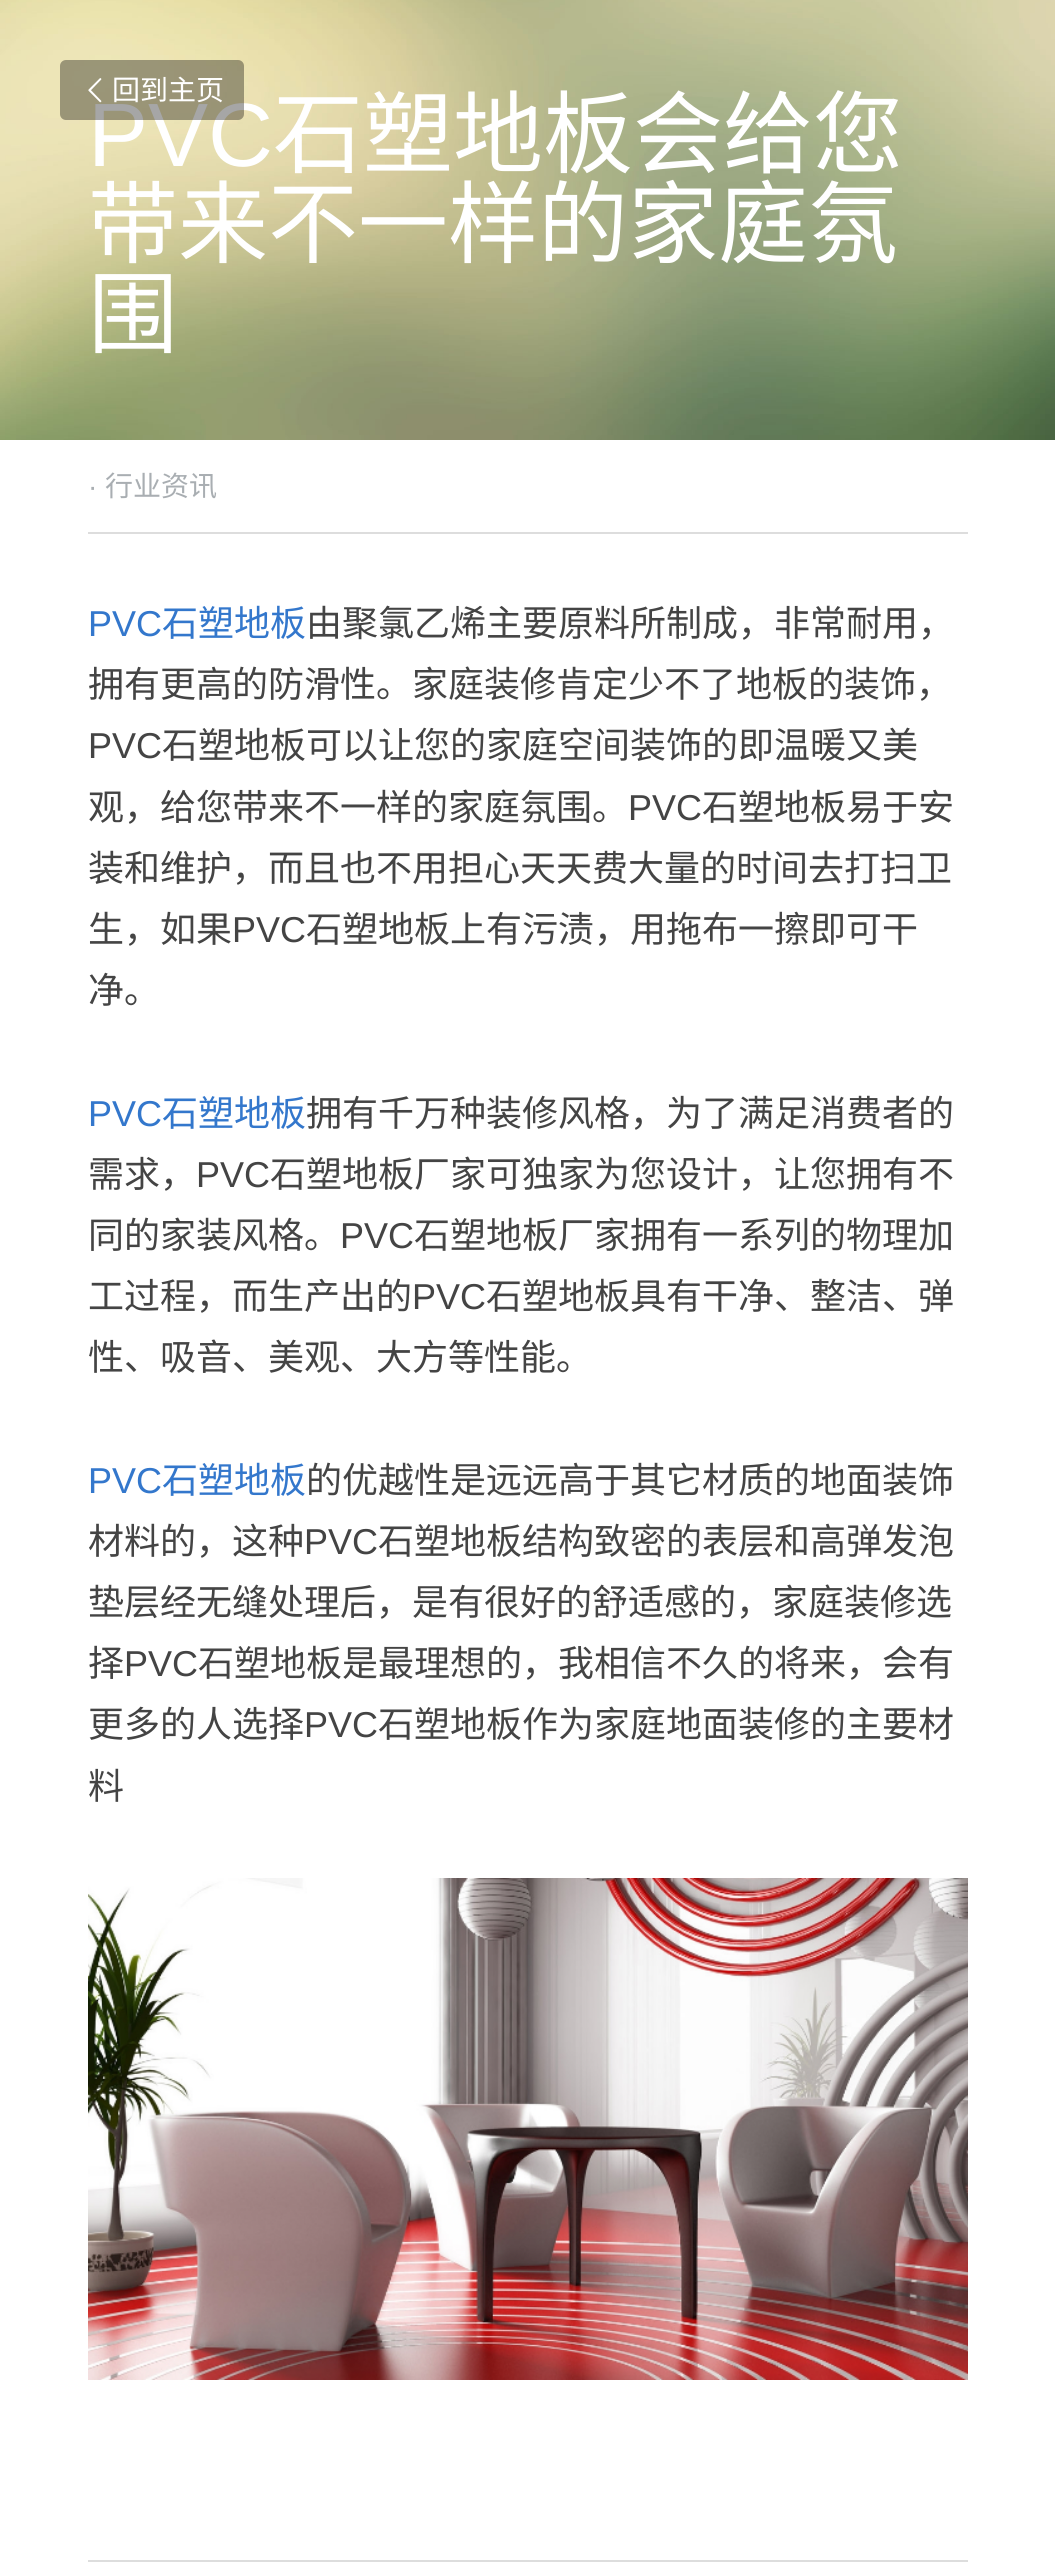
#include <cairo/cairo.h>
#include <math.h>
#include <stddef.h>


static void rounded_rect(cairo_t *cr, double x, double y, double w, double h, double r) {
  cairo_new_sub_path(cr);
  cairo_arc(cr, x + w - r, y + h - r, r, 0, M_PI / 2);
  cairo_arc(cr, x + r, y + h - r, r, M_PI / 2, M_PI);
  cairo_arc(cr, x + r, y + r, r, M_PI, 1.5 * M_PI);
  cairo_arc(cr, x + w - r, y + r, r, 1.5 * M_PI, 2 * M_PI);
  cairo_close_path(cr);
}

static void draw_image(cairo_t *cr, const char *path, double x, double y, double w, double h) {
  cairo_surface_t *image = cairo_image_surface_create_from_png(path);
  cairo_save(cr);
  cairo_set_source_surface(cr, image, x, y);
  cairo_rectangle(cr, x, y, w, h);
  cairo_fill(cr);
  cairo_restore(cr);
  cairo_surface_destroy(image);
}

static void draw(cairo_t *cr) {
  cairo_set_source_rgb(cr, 1, 1, 1);
  cairo_paint(cr);
  draw_image(cr, "images/1.png", 0, 0, 1055, 440);
  cairo_set_source_rgb(cr, 221 / 255.0, 221 / 255.0, 221 / 255.0);
  cairo_rectangle(cr, 88, 532, 880, 2);
  cairo_fill(cr);
  draw_image(cr, "images/3.png", 88, 1878, 880, 502);
  cairo_rectangle(cr, 88, 2560, 880, 2);
  cairo_fill(cr);
  cairo_select_font_face(cr, "Liberation Sans", CAIRO_FONT_SLANT_NORMAL, CAIRO_FONT_WEIGHT_NORMAL);
  cairo_set_font_size(cr, 90);
  cairo_set_source_rgb(cr, 1, 1, 1);
  cairo_move_to(cr, 88, 166);
  cairo_show_text(cr, "PVC");
  cairo_set_source_rgba(cr, 0, 0, 0, 0.35);
  rounded_rect(cr, 60, 60, 184, 60, 6);
  cairo_fill(cr);
  cairo_select_font_face(cr, "Noto Sans CJK SC", CAIRO_FONT_SLANT_NORMAL, CAIRO_FONT_WEIGHT_NORMAL);
  cairo_set_font_size(cr, 28);
  cairo_set_source_rgb(cr, 1, 1, 1);
  cairo_move_to(cr, 112, 100);
  cairo_show_text(cr, "回到主页");
  draw_image(cr, "images/2.png", 88, 78, 14, 25);
  cairo_set_font_size(cr, 90);
  cairo_move_to(cr, 273, 166);
  cairo_show_text(cr, "石塑地板会给您");
  cairo_move_to(cr, 88, 256);
  cairo_show_text(cr, "带来不一样的家庭氛");
  cairo_move_to(cr, 88, 346);
  cairo_show_text(cr, "围");
  cairo_select_font_face(cr, "Liberation Sans", CAIRO_FONT_SLANT_NORMAL, CAIRO_FONT_WEIGHT_NORMAL);
  cairo_set_font_size(cr, 28);
  cairo_set_source_rgb(cr, 169 / 255.0, 174 / 255.0, 178 / 255.0);
  cairo_move_to(cr, 88, 496);
  cairo_show_text(cr, "·");
  cairo_select_font_face(cr, "Noto Sans CJK SC", CAIRO_FONT_SLANT_NORMAL, CAIRO_FONT_WEIGHT_NORMAL);
  cairo_move_to(cr, 105, 496);
  cairo_show_text(cr, "行业资讯");
  cairo_select_font_face(cr, "Liberation Sans", CAIRO_FONT_SLANT_NORMAL, CAIRO_FONT_WEIGHT_NORMAL);
  cairo_set_font_size(cr, 36);
  cairo_set_source_rgb(cr, 51 / 255.0, 119 / 255.0, 204 / 255.0);
  cairo_move_to(cr, 88, 636);
  cairo_show_text(cr, "PVC");
  cairo_select_font_face(cr, "Noto Sans CJK SC", CAIRO_FONT_SLANT_NORMAL, CAIRO_FONT_WEIGHT_NORMAL);
  cairo_move_to(cr, 162, 636);
  cairo_show_text(cr, "石塑地板");
  cairo_set_source_rgb(cr, 68 / 255.0, 68 / 255.0, 68 / 255.0);
  cairo_move_to(cr, 306, 636);
  cairo_show_text(cr, "由聚氯乙烯主要原料所制成，非常耐用，");
  cairo_move_to(cr, 88, 697);
  cairo_show_text(cr, "拥有更高的防滑性。家庭装修肯定少不了地板的装饰，");
  cairo_select_font_face(cr, "Liberation Sans", CAIRO_FONT_SLANT_NORMAL, CAIRO_FONT_WEIGHT_NORMAL);
  cairo_move_to(cr, 88, 758);
  cairo_show_text(cr, "PVC");
  cairo_select_font_face(cr, "Noto Sans CJK SC", CAIRO_FONT_SLANT_NORMAL, CAIRO_FONT_WEIGHT_NORMAL);
  cairo_move_to(cr, 162, 758);
  cairo_show_text(cr, "石塑地板可以让您的家庭空间装饰的即温暖又美");
  cairo_move_to(cr, 88, 820);
  cairo_show_text(cr, "观，给您带来不一样的家庭氛围。");
  cairo_select_font_face(cr, "Liberation Sans", CAIRO_FONT_SLANT_NORMAL, CAIRO_FONT_WEIGHT_NORMAL);
  cairo_move_to(cr, 628, 820);
  cairo_show_text(cr, "PVC");
  cairo_select_font_face(cr, "Noto Sans CJK SC", CAIRO_FONT_SLANT_NORMAL, CAIRO_FONT_WEIGHT_NORMAL);
  cairo_move_to(cr, 702, 820);
  cairo_show_text(cr, "石塑地板易于安");
  cairo_move_to(cr, 88, 881);
  cairo_show_text(cr, "装和维护，而且也不用担心天天费大量的时间去打扫卫");
  cairo_move_to(cr, 88, 942);
  cairo_show_text(cr, "生，如果");
  cairo_select_font_face(cr, "Liberation Sans", CAIRO_FONT_SLANT_NORMAL, CAIRO_FONT_WEIGHT_NORMAL);
  cairo_move_to(cr, 232, 942);
  cairo_show_text(cr, "PVC");
  cairo_select_font_face(cr, "Noto Sans CJK SC", CAIRO_FONT_SLANT_NORMAL, CAIRO_FONT_WEIGHT_NORMAL);
  cairo_move_to(cr, 306, 942);
  cairo_show_text(cr, "石塑地板上有污渍，用拖布一擦即可干");
  cairo_move_to(cr, 88, 1003);
  cairo_show_text(cr, "净。");
  cairo_select_font_face(cr, "Liberation Sans", CAIRO_FONT_SLANT_NORMAL, CAIRO_FONT_WEIGHT_NORMAL);
  cairo_set_source_rgb(cr, 51 / 255.0, 119 / 255.0, 204 / 255.0);
  cairo_move_to(cr, 88, 1126);
  cairo_show_text(cr, "PVC");
  cairo_select_font_face(cr, "Noto Sans CJK SC", CAIRO_FONT_SLANT_NORMAL, CAIRO_FONT_WEIGHT_NORMAL);
  cairo_move_to(cr, 162, 1126);
  cairo_show_text(cr, "石塑地板");
  cairo_set_source_rgb(cr, 68 / 255.0, 68 / 255.0, 68 / 255.0);
  cairo_move_to(cr, 306, 1126);
  cairo_show_text(cr, "拥有千万种装修风格，为了满足消费者的");
  cairo_move_to(cr, 88, 1187);
  cairo_show_text(cr, "需求，");
  cairo_select_font_face(cr, "Liberation Sans", CAIRO_FONT_SLANT_NORMAL, CAIRO_FONT_WEIGHT_NORMAL);
  cairo_move_to(cr, 196, 1187);
  cairo_show_text(cr, "PVC");
  cairo_select_font_face(cr, "Noto Sans CJK SC", CAIRO_FONT_SLANT_NORMAL, CAIRO_FONT_WEIGHT_NORMAL);
  cairo_move_to(cr, 270, 1187);
  cairo_show_text(cr, "石塑地板厂家可独家为您设计，让您拥有不");
  cairo_move_to(cr, 88, 1248);
  cairo_show_text(cr, "同的家装风格。");
  cairo_select_font_face(cr, "Liberation Sans", CAIRO_FONT_SLANT_NORMAL, CAIRO_FONT_WEIGHT_NORMAL);
  cairo_move_to(cr, 340, 1248);
  cairo_show_text(cr, "PVC");
  cairo_select_font_face(cr, "Noto Sans CJK SC", CAIRO_FONT_SLANT_NORMAL, CAIRO_FONT_WEIGHT_NORMAL);
  cairo_move_to(cr, 414, 1248);
  cairo_show_text(cr, "石塑地板厂家拥有一系列的物理加");
  cairo_move_to(cr, 88, 1309);
  cairo_show_text(cr, "工过程，而生产出的");
  cairo_select_font_face(cr, "Liberation Sans", CAIRO_FONT_SLANT_NORMAL, CAIRO_FONT_WEIGHT_NORMAL);
  cairo_move_to(cr, 412, 1309);
  cairo_show_text(cr, "PVC");
  cairo_select_font_face(cr, "Noto Sans CJK SC", CAIRO_FONT_SLANT_NORMAL, CAIRO_FONT_WEIGHT_NORMAL);
  cairo_move_to(cr, 486, 1309);
  cairo_show_text(cr, "石塑地板具有干净、整洁、弹");
  cairo_move_to(cr, 88, 1370);
  cairo_show_text(cr, "性、吸音、美观、大方等性能。");
  cairo_select_font_face(cr, "Liberation Sans", CAIRO_FONT_SLANT_NORMAL, CAIRO_FONT_WEIGHT_NORMAL);
  cairo_set_source_rgb(cr, 51 / 255.0, 119 / 255.0, 204 / 255.0);
  cairo_move_to(cr, 88, 1493);
  cairo_show_text(cr, "PVC");
  cairo_select_font_face(cr, "Noto Sans CJK SC", CAIRO_FONT_SLANT_NORMAL, CAIRO_FONT_WEIGHT_NORMAL);
  cairo_move_to(cr, 162, 1493);
  cairo_show_text(cr, "石塑地板");
  cairo_set_source_rgb(cr, 68 / 255.0, 68 / 255.0, 68 / 255.0);
  cairo_move_to(cr, 306, 1493);
  cairo_show_text(cr, "的优越性是远远高于其它材质的地面装饰");
  cairo_move_to(cr, 88, 1554);
  cairo_show_text(cr, "材料的，这种");
  cairo_select_font_face(cr, "Liberation Sans", CAIRO_FONT_SLANT_NORMAL, CAIRO_FONT_WEIGHT_NORMAL);
  cairo_move_to(cr, 304, 1554);
  cairo_show_text(cr, "PVC");
  cairo_select_font_face(cr, "Noto Sans CJK SC", CAIRO_FONT_SLANT_NORMAL, CAIRO_FONT_WEIGHT_NORMAL);
  cairo_move_to(cr, 378, 1554);
  cairo_show_text(cr, "石塑地板结构致密的表层和高弹发泡");
  cairo_move_to(cr, 88, 1615);
  cairo_show_text(cr, "垫层经无缝处理后，是有很好的舒适感的，家庭装修选");
  cairo_move_to(cr, 88, 1676);
  cairo_show_text(cr, "择");
  cairo_select_font_face(cr, "Liberation Sans", CAIRO_FONT_SLANT_NORMAL, CAIRO_FONT_WEIGHT_NORMAL);
  cairo_move_to(cr, 124, 1676);
  cairo_show_text(cr, "PVC");
  cairo_select_font_face(cr, "Noto Sans CJK SC", CAIRO_FONT_SLANT_NORMAL, CAIRO_FONT_WEIGHT_NORMAL);
  cairo_move_to(cr, 198, 1676);
  cairo_show_text(cr, "石塑地板是最理想的，我相信不久的将来，会有");
  cairo_move_to(cr, 88, 1737);
  cairo_show_text(cr, "更多的人选择");
  cairo_select_font_face(cr, "Liberation Sans", CAIRO_FONT_SLANT_NORMAL, CAIRO_FONT_WEIGHT_NORMAL);
  cairo_move_to(cr, 304, 1737);
  cairo_show_text(cr, "PVC");
  cairo_select_font_face(cr, "Noto Sans CJK SC", CAIRO_FONT_SLANT_NORMAL, CAIRO_FONT_WEIGHT_NORMAL);
  cairo_move_to(cr, 378, 1737);
  cairo_show_text(cr, "石塑地板作为家庭地面装修的主要材");
  cairo_move_to(cr, 88, 1799);
  cairo_show_text(cr, "料");
}

int main(void) {
  cairo_surface_t *surface = cairo_image_surface_create(CAIRO_FORMAT_RGB24, 1055, 2567);
  cairo_t *cr = cairo_create(surface);
  cairo_font_options_t *options = cairo_font_options_create();
  cairo_font_options_set_hint_metrics(options, CAIRO_HINT_METRICS_OFF);
  cairo_font_options_set_hint_style(options, CAIRO_HINT_STYLE_NONE);
  cairo_set_font_options(cr, options);
  cairo_set_miter_limit(cr, 4);
  draw(cr);
  cairo_surface_write_to_png(surface, "out.png");
  cairo_font_options_destroy(options);
  cairo_destroy(cr);
  cairo_surface_destroy(surface);
  return 0;
}
